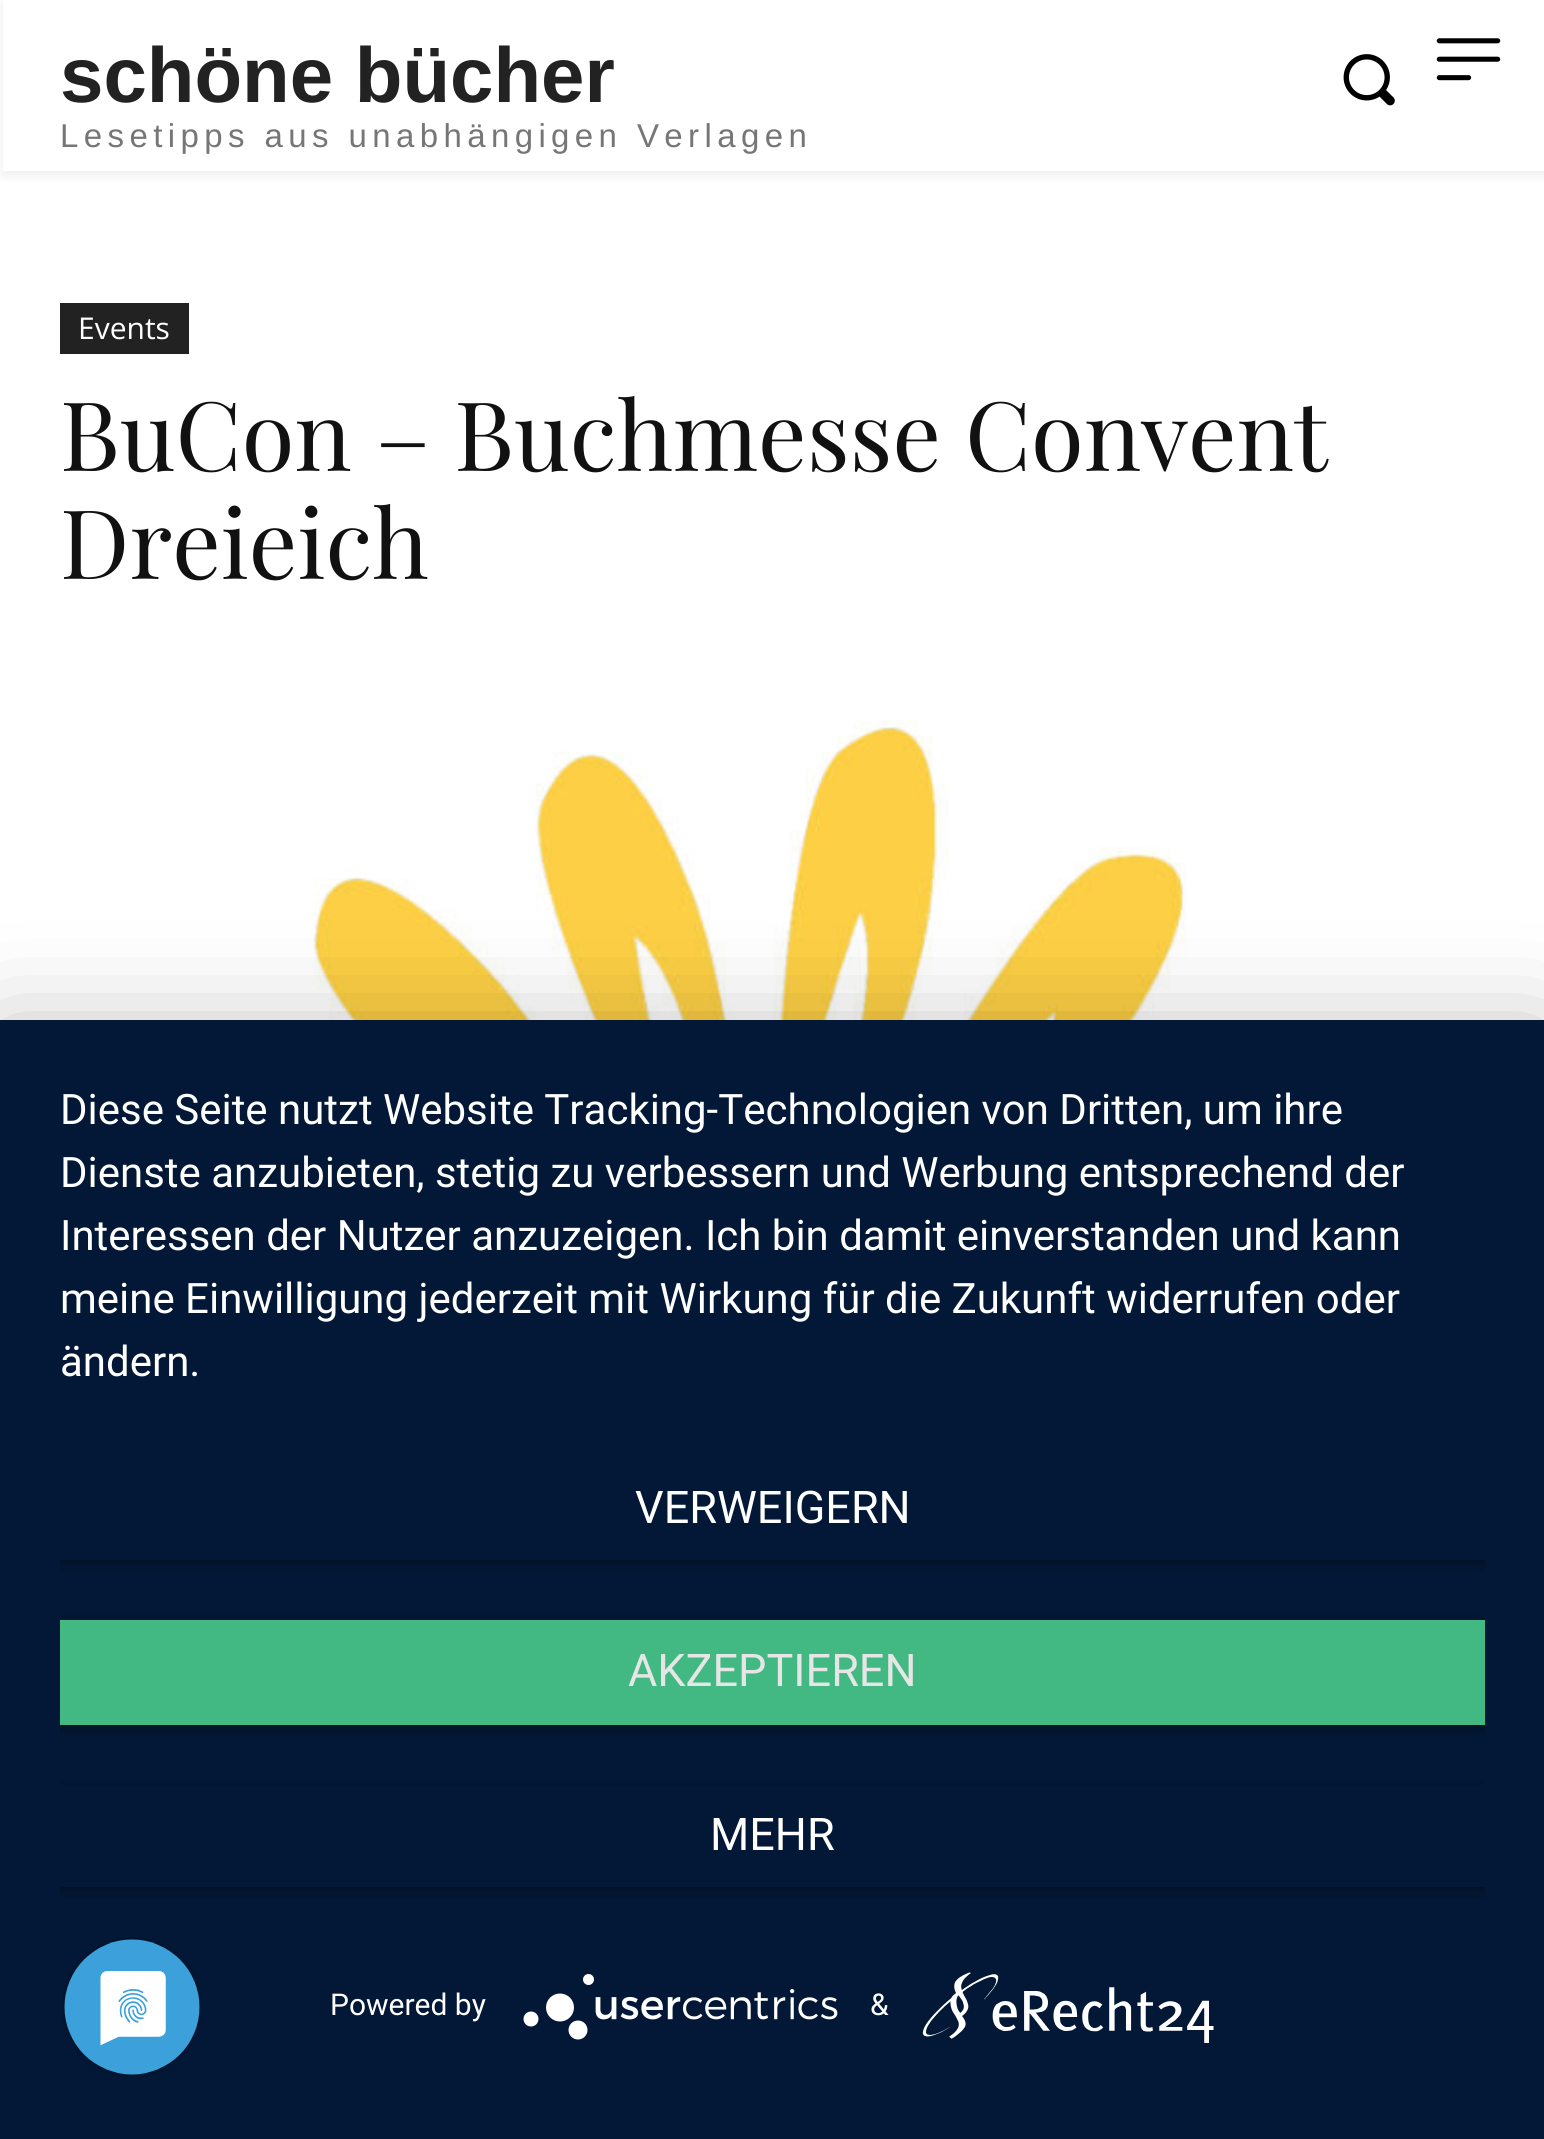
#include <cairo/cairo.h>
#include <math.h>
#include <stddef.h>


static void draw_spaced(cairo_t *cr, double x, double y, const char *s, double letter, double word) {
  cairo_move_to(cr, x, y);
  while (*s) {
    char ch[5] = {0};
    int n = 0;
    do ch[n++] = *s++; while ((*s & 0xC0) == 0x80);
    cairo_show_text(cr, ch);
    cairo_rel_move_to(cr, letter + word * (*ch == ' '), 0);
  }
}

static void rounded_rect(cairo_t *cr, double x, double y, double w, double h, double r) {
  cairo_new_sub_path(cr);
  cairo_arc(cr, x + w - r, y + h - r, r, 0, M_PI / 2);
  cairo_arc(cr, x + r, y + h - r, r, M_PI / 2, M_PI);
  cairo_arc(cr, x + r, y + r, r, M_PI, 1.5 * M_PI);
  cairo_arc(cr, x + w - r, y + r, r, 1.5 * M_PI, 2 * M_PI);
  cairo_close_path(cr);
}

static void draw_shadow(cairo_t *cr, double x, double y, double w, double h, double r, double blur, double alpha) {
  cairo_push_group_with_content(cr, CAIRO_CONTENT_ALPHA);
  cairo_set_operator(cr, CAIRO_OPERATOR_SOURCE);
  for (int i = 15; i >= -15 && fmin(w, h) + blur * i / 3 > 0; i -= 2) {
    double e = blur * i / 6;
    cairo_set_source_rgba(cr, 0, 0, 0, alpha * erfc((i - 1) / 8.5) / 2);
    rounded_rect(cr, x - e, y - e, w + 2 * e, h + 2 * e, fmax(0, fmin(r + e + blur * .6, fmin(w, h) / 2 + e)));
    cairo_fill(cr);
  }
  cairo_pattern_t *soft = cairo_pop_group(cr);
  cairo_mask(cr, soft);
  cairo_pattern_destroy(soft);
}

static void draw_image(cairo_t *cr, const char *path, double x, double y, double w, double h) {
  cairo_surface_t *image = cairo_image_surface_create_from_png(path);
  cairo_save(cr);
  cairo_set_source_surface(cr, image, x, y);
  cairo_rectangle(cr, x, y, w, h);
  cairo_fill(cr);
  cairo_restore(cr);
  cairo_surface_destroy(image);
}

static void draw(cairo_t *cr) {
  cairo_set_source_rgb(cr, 1, 1, 1);
  cairo_paint(cr);
  draw_image(cr, "images/1.png", 1343, 54, 52, 52);
  draw_image(cr, "images/2.png", 1436, 38, 65, 43);
  cairo_save(cr);
  cairo_set_fill_rule(cr, CAIRO_FILL_RULE_EVEN_ODD);
  cairo_new_path(cr);
  cairo_move_to(cr, 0, 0);
  cairo_line_to(cr, 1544, 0);
  cairo_line_to(cr, 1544, 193);
  cairo_line_to(cr, 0, 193);
  cairo_close_path(cr);
  cairo_move_to(cr, 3, 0);
  cairo_line_to(cr, 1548, 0);
  cairo_line_to(cr, 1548, 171);
  cairo_line_to(cr, 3, 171);
  cairo_close_path(cr);
  cairo_clip(cr);
  cairo_set_source_rgb(cr, 0, 0, 0);
  draw_shadow(cr, 3, 3, 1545, 171, 0, 6, 0.08);
  cairo_restore(cr);
  cairo_set_source_rgb(cr, 34 / 255.0, 34 / 255.0, 34 / 255.0);
  cairo_rectangle(cr, 60, 303, 129, 51);
  cairo_fill(cr);
  draw_image(cr, "images/3.png", 76, 720, 1333, 300);
  cairo_set_source_rgb(cr, 0, 0, 0);
  draw_shadow(cr, 0, 1038, 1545, 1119, 0, 54, 0.3);
  cairo_set_source_rgb(cr, 2 / 255.0, 24 / 255.0, 54 / 255.0);
  cairo_rectangle(cr, 0, 1020, 1544, 1119);
  cairo_fill(cr);
  cairo_save(cr);
  cairo_rectangle(cr, 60, 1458, 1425, 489);
  cairo_clip(cr);
  cairo_rectangle(cr, 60, 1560, 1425, 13);
  cairo_clip(cr);
  cairo_set_source_rgb(cr, 0, 0, 0);
  draw_shadow(cr, 60, 1461, 1425, 102, 0, 6, 0.4);
  cairo_restore(cr);
  cairo_save(cr);
  cairo_rectangle(cr, 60, 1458, 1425, 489);
  cairo_clip(cr);
  cairo_set_source_rgb(cr, 0, 0, 0);
  draw_shadow(cr, 60, 1623, 1425, 105, 0, 6, 0.4);
  cairo_restore(cr);
  cairo_set_source_rgb(cr, 66 / 255.0, 185 / 255.0, 131 / 255.0);
  cairo_rectangle(cr, 60, 1620, 1425, 105);
  cairo_fill(cr);
  cairo_save(cr);
  cairo_rectangle(cr, 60, 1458, 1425, 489);
  cairo_clip(cr);
  cairo_set_fill_rule(cr, CAIRO_FILL_RULE_EVEN_ODD);
  cairo_new_path(cr);
  cairo_move_to(cr, 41, 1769);
  cairo_line_to(cr, 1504, 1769);
  cairo_line_to(cr, 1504, 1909);
  cairo_line_to(cr, 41, 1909);
  cairo_close_path(cr);
  cairo_move_to(cr, 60, 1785);
  cairo_line_to(cr, 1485, 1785);
  cairo_line_to(cr, 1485, 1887);
  cairo_line_to(cr, 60, 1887);
  cairo_close_path(cr);
  cairo_clip(cr);
  cairo_set_source_rgb(cr, 0, 0, 0);
  draw_shadow(cr, 60, 1788, 1425, 102, 0, 6, 0.4);
  cairo_restore(cr);
  draw_image(cr, "images/4.png", 523, 1974, 315, 66);
  draw_image(cr, "images/5.png", 922, 1972, 292, 71);
  draw_image(cr, "images/6.png", 62, 1937, 140, 140);
  cairo_select_font_face(cr, "Liberation Sans", CAIRO_FONT_SLANT_NORMAL, CAIRO_FONT_WEIGHT_BOLD);
  cairo_set_font_size(cr, 78);
  cairo_set_source_rgb(cr, 34 / 255.0, 34 / 255.0, 34 / 255.0);
  cairo_move_to(cr, 60, 102);
  cairo_show_text(cr, "schöne bücher");
  cairo_select_font_face(cr, "Liberation Sans", CAIRO_FONT_SLANT_NORMAL, CAIRO_FONT_WEIGHT_NORMAL);
  cairo_set_font_size(cr, 33);
  cairo_set_source_rgb(cr, 118 / 255.0, 118 / 255.0, 118 / 255.0);
  draw_spaced(cr, 60, 147, "Lesetipps aus unabhängigen Verlagen", 5.4, 0);
  cairo_select_font_face(cr, "Open Sans", CAIRO_FONT_SLANT_NORMAL, CAIRO_FONT_WEIGHT_NORMAL);
  cairo_set_font_size(cr, 30);
  cairo_set_source_rgb(cr, 1, 1, 1);
  cairo_move_to(cr, 78, 339);
  cairo_show_text(cr, "Events");
  cairo_select_font_face(cr, "Playfair Display", CAIRO_FONT_SLANT_NORMAL, CAIRO_FONT_WEIGHT_NORMAL);
  cairo_set_font_size(cr, 96);
  cairo_set_source_rgb(cr, 17 / 255.0, 17 / 255.0, 17 / 255.0);
  cairo_move_to(cr, 60, 471);
  cairo_show_text(cr, "BuCon – Buchmesse Convent");
  cairo_move_to(cr, 60, 579);
  cairo_show_text(cr, "Dreieich");
  cairo_select_font_face(cr, "Roboto", CAIRO_FONT_SLANT_NORMAL, CAIRO_FONT_WEIGHT_NORMAL);
  cairo_set_font_size(cr, 42);
  cairo_set_source_rgb(cr, 1, 1, 1);
  cairo_move_to(cr, 60, 1124);
  cairo_show_text(cr, "Diese Seite nutzt Website Tracking-Technologien von Dritten, um ihre");
  cairo_move_to(cr, 60, 1187);
  cairo_show_text(cr, "Dienste anzubieten, stetig zu verbessern und Werbung entsprechend der");
  cairo_move_to(cr, 60, 1250);
  cairo_show_text(cr, "Interessen der Nutzer anzuzeigen. Ich bin damit einverstanden und kann");
  cairo_move_to(cr, 60, 1313);
  cairo_show_text(cr, "meine Einwilligung jederzeit mit Wirkung für die Zukunft widerrufen oder");
  cairo_move_to(cr, 60, 1376);
  cairo_show_text(cr, "ändern.");
  cairo_set_font_size(cr, 45);
  cairo_move_to(cr, 635, 1523);
  cairo_show_text(cr, "VERWEIGERN");
  cairo_set_source_rgb(cr, 230 / 255.0, 230 / 255.0, 230 / 255.0);
  cairo_move_to(cr, 628, 1686);
  cairo_show_text(cr, "AKZEPTIEREN");
  cairo_set_source_rgb(cr, 1, 1, 1);
  cairo_move_to(cr, 710, 1850);
  cairo_show_text(cr, "MEHR");
  cairo_set_font_size(cr, 30);
  cairo_move_to(cr, 330, 2015);
  cairo_show_text(cr, "Powered by");
  cairo_move_to(cr, 870, 2015);
  cairo_show_text(cr, "&");
}

int main(void) {
  cairo_surface_t *surface = cairo_image_surface_create(CAIRO_FORMAT_RGB24, 1544, 2139);
  cairo_t *cr = cairo_create(surface);
  cairo_font_options_t *options = cairo_font_options_create();
  cairo_font_options_set_hint_metrics(options, CAIRO_HINT_METRICS_OFF);
  cairo_font_options_set_hint_style(options, CAIRO_HINT_STYLE_NONE);
  cairo_set_font_options(cr, options);
  cairo_set_miter_limit(cr, 4);
  draw(cr);
  cairo_surface_write_to_png(surface, "out.png");
  cairo_font_options_destroy(options);
  cairo_destroy(cr);
  cairo_surface_destroy(surface);
  return 0;
}
